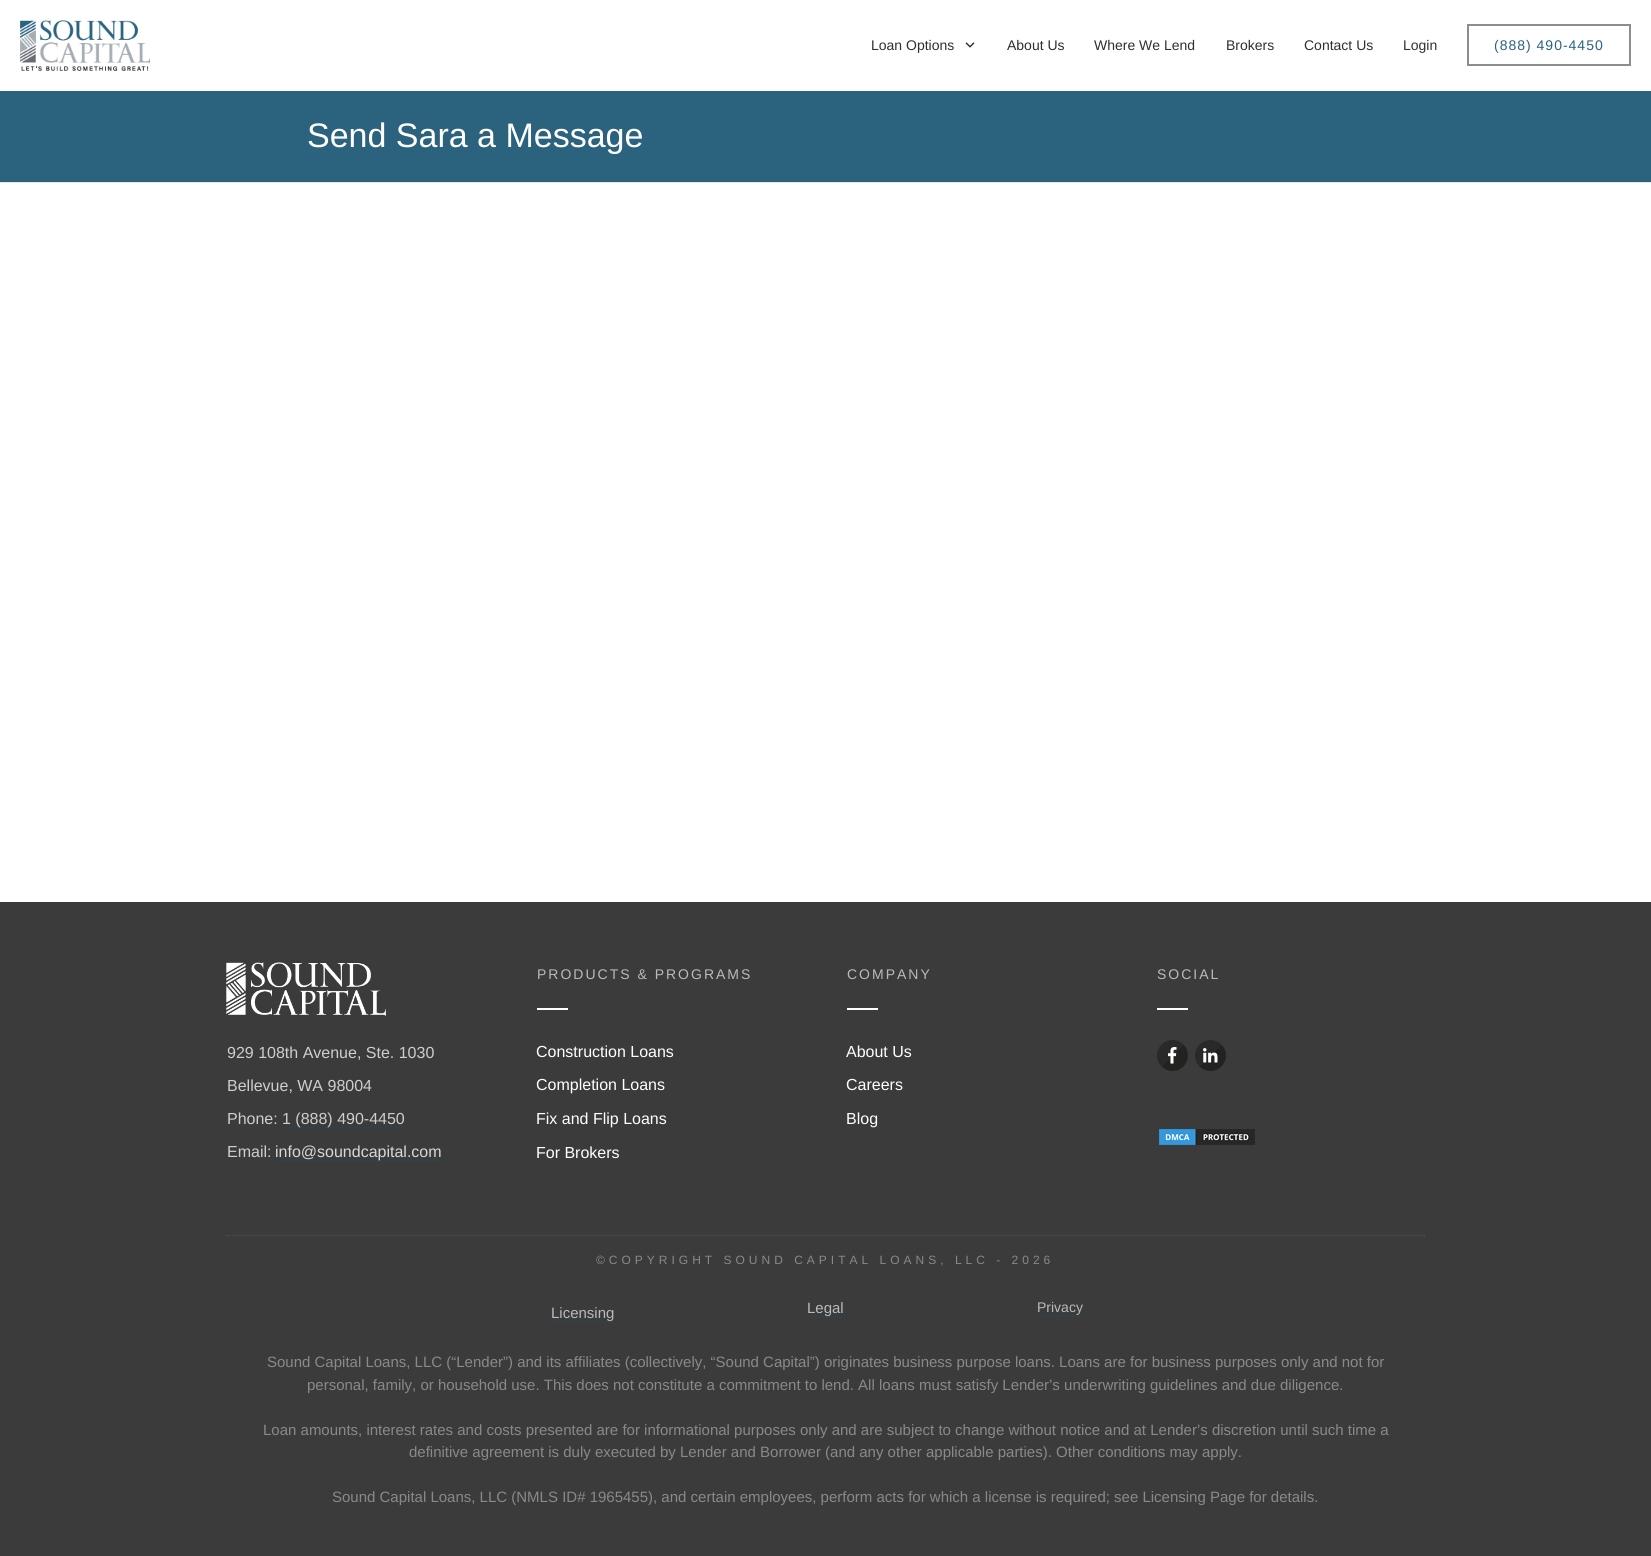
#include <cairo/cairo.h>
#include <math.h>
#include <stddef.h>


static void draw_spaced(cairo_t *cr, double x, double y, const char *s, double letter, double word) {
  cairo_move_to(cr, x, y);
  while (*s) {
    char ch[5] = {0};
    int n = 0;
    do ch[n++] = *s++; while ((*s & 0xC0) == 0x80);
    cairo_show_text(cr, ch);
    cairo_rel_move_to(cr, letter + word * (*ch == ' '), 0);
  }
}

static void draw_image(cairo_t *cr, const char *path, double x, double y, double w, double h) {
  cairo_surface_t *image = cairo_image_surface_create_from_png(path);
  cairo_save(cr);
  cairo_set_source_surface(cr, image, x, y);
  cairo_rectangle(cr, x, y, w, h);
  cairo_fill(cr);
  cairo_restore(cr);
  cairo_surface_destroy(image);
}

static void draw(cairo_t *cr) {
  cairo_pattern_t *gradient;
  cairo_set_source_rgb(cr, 1, 1, 1);
  cairo_paint(cr);
  draw_image(cr, "images/1.png", 20, 20, 130, 51);
  draw_image(cr, "images/2.png", 965, 42, 10, 6);
  cairo_rectangle(cr, 1468, 25, 162, 40);
  cairo_set_source_rgb(cr, 137 / 255.0, 142 / 255.0, 144 / 255.0);
  cairo_stroke(cr);
  cairo_set_source_rgb(cr, 43 / 255.0, 98 / 255.0, 125 / 255.0);
  cairo_rectangle(cr, 0, 91, 1651, 91);
  cairo_fill(cr);
  cairo_set_source_rgb(cr, 230 / 255.0, 230 / 255.0, 230 / 255.0);
  cairo_rectangle(cr, 0, 182, 1651, 1);
  cairo_fill(cr);
  cairo_set_source_rgb(cr, 59 / 255.0, 59 / 255.0, 59 / 255.0);
  cairo_rectangle(cr, 0, 902, 1651, 654);
  cairo_fill(cr);
  cairo_set_source_rgb(cr, 1, 1, 1);
  cairo_rectangle(cr, 537, 1008, 31, 2);
  cairo_fill(cr);
  cairo_rectangle(cr, 847, 1008, 31, 2);
  cairo_fill(cr);
  cairo_rectangle(cr, 1157, 1008, 31, 2);
  cairo_fill(cr);
  gradient = cairo_pattern_create_linear(1157, 1040, 1188, 1071);
  cairo_pattern_add_color_stop_rgba(gradient, 0.5, 41 / 255.0, 41 / 255.0, 41 / 255.0, 1);
  cairo_pattern_add_color_stop_rgba(gradient, 0.5, 34 / 255.0, 34 / 255.0, 33 / 255.0, 1);
  cairo_set_source(cr, gradient);
  cairo_pattern_destroy(gradient);
  cairo_arc(cr, 1172.5, 1055.5, 15.5, 0, 2 * M_PI);
  cairo_fill(cr);
  draw_image(cr, "images/3.png", 1168, 1047, 9, 17);
  gradient = cairo_pattern_create_linear(1195, 1040, 1226, 1071);
  cairo_pattern_add_color_stop_rgba(gradient, 0.5, 41 / 255.0, 41 / 255.0, 41 / 255.0, 1);
  cairo_pattern_add_color_stop_rgba(gradient, 0.5, 34 / 255.0, 34 / 255.0, 33 / 255.0, 1);
  cairo_set_source(cr, gradient);
  cairo_pattern_destroy(gradient);
  cairo_arc(cr, 1210.5, 1055.5, 15.5, 0, 2 * M_PI);
  cairo_fill(cr);
  draw_image(cr, "images/4.png", 1203, 1048, 15, 15);
  draw_image(cr, "images/5.png", 1159, 1129, 96, 16);
  draw_image(cr, "images/6.png", 226, 962, 160, 54);
  cairo_set_source_rgb(cr, 50 / 255.0, 65 / 255.0, 72 / 255.0);
  cairo_rectangle(cr, 282, 1127, 122, 2);
  cairo_fill(cr);
  cairo_rectangle(cr, 275, 1160, 167, 2);
  cairo_fill(cr);
  cairo_new_path(cr);
  cairo_move_to(cr, 226, 1235.5);
  cairo_line_to(cr, 1426, 1235.5);
  cairo_set_source_rgb(cr, 83 / 255.0, 83 / 255.0, 83 / 255.0);
  cairo_set_line_width(cr, 1);
  cairo_set_dash(cr, (double[]){1, 1}, 2, 0);
  cairo_stroke(cr);
  cairo_set_source_rgb(cr, 50 / 255.0, 65 / 255.0, 72 / 255.0);
  cairo_rectangle(cr, 551, 1321, 63, 2);
  cairo_fill(cr);
  cairo_rectangle(cr, 807, 1316, 37, 2);
  cairo_fill(cr);
  cairo_rectangle(cr, 1037, 1315, 45, 2);
  cairo_fill(cr);
  cairo_select_font_face(cr, "Liberation Sans", CAIRO_FONT_SLANT_NORMAL, CAIRO_FONT_WEIGHT_NORMAL);
  cairo_set_font_size(cr, 14);
  cairo_set_source_rgb(cr, 47 / 255.0, 47 / 255.0, 47 / 255.0);
  cairo_move_to(cr, 871, 50);
  cairo_show_text(cr, "Loan Options");
  cairo_move_to(cr, 1007, 50);
  cairo_show_text(cr, "About Us");
  cairo_move_to(cr, 1094, 50);
  cairo_show_text(cr, "Where We Lend");
  cairo_move_to(cr, 1226, 50);
  cairo_show_text(cr, "Brokers");
  cairo_move_to(cr, 1304, 50);
  cairo_show_text(cr, "Contact Us");
  cairo_move_to(cr, 1403, 50);
  cairo_show_text(cr, "Login");
  cairo_set_source_rgb(cr, 43 / 255.0, 98 / 255.0, 125 / 255.0);
  draw_spaced(cr, 1494, 50, "(888) 490-4450", 1, 0);
  cairo_set_font_size(cr, 34);
  cairo_set_source_rgb(cr, 1, 1, 1);
  cairo_move_to(cr, 307, 147);
  cairo_show_text(cr, "Send Sara a Message");
  cairo_set_font_size(cr, 14);
  cairo_set_source_rgb(cr, 186 / 255.0, 186 / 255.0, 186 / 255.0);
  draw_spaced(cr, 537, 979, "PRODUCTS & PROGRAMS", 2, 0);
  cairo_set_font_size(cr, 16);
  cairo_set_source_rgb(cr, 1, 1, 1);
  cairo_move_to(cr, 536, 1057);
  cairo_show_text(cr, "Construction Loans");
  cairo_move_to(cr, 536, 1090);
  cairo_show_text(cr, "Completion Loans");
  cairo_move_to(cr, 536, 1124);
  cairo_show_text(cr, "Fix and Flip Loans");
  cairo_move_to(cr, 536, 1158);
  cairo_show_text(cr, "For Brokers");
  cairo_set_font_size(cr, 14);
  cairo_set_source_rgb(cr, 186 / 255.0, 186 / 255.0, 186 / 255.0);
  draw_spaced(cr, 847, 979, "COMPANY", 2, 0);
  cairo_set_font_size(cr, 16);
  cairo_set_source_rgb(cr, 1, 1, 1);
  cairo_move_to(cr, 846, 1057);
  cairo_show_text(cr, "About Us");
  cairo_move_to(cr, 846, 1090);
  cairo_show_text(cr, "Careers");
  cairo_move_to(cr, 846, 1124);
  cairo_show_text(cr, "Blog");
  cairo_set_font_size(cr, 14);
  cairo_set_source_rgb(cr, 186 / 255.0, 186 / 255.0, 186 / 255.0);
  draw_spaced(cr, 1157, 979, "SOCIAL", 2, 0);
  cairo_set_font_size(cr, 16);
  cairo_set_source_rgb(cr, 206 / 255.0, 206 / 255.0, 206 / 255.0);
  cairo_move_to(cr, 227, 1058);
  cairo_show_text(cr, "929 108th Avenue, Ste. 1030");
  cairo_move_to(cr, 227, 1091);
  cairo_show_text(cr, "Bellevue, WA 98004");
  cairo_move_to(cr, 227, 1124);
  cairo_show_text(cr, "Phone:");
  cairo_move_to(cr, 282, 1124);
  cairo_show_text(cr, "1 (888) 490-4450");
  cairo_move_to(cr, 227, 1157);
  cairo_show_text(cr, "Email:");
  cairo_set_source_rgb(cr, 216 / 255.0, 216 / 255.0, 216 / 255.0);
  cairo_move_to(cr, 275, 1157);
  cairo_show_text(cr, "info@soundcapital.com");
  cairo_set_font_size(cr, 12);
  cairo_set_source_rgb(cr, 137 / 255.0, 137 / 255.0, 137 / 255.0);
  draw_spaced(cr, 596, 1264, "©COPYRIGHT SOUND CAPITAL LOANS, LLC - 2026", 4, 0);
  cairo_set_font_size(cr, 15);
  cairo_set_source_rgb(cr, 186 / 255.0, 186 / 255.0, 186 / 255.0);
  cairo_move_to(cr, 551, 1318);
  cairo_show_text(cr, "Licensing");
  cairo_move_to(cr, 807, 1313);
  cairo_show_text(cr, "Legal");
  cairo_set_font_size(cr, 14);
  cairo_move_to(cr, 1037, 1312);
  cairo_show_text(cr, "Privacy");
  cairo_set_font_size(cr, 15);
  cairo_set_source_rgb(cr, 137 / 255.0, 137 / 255.0, 137 / 255.0);
  cairo_move_to(cr, 267, 1367);
  cairo_show_text(cr, "Sound Capital Loans, LLC (“Lender”) and its affiliates (collectively, “Sound Capital”) originates business purpose loans. Loans are for business purposes only and not for");
  cairo_move_to(cr, 307, 1390);
  cairo_show_text(cr, "personal, family, or household use. This does not constitute a commitment to lend. All loans must satisfy Lender’s underwriting guidelines and due diligence.");
  cairo_move_to(cr, 263, 1435);
  cairo_show_text(cr, "Loan amounts, interest rates and costs presented are for informational purposes only and are subject to change without notice and at Lender’s discretion until such time a");
  cairo_move_to(cr, 409, 1457);
  cairo_show_text(cr, "definitive agreement is duly executed by Lender and Borrower (and any other applicable parties). Other conditions may apply.");
  cairo_move_to(cr, 332, 1502);
  cairo_show_text(cr, "Sound Capital Loans, LLC (NMLS ID# 1965455), and certain employees, perform acts for which a license is required; see Licensing Page for details.");
}

int main(void) {
  cairo_surface_t *surface = cairo_image_surface_create(CAIRO_FORMAT_RGB24, 1651, 1556);
  cairo_t *cr = cairo_create(surface);
  cairo_font_options_t *options = cairo_font_options_create();
  cairo_font_options_set_hint_metrics(options, CAIRO_HINT_METRICS_OFF);
  cairo_font_options_set_hint_style(options, CAIRO_HINT_STYLE_NONE);
  cairo_set_font_options(cr, options);
  cairo_set_miter_limit(cr, 4);
  draw(cr);
  cairo_surface_write_to_png(surface, "out.png");
  cairo_font_options_destroy(options);
  cairo_destroy(cr);
  cairo_surface_destroy(surface);
  return 0;
}
